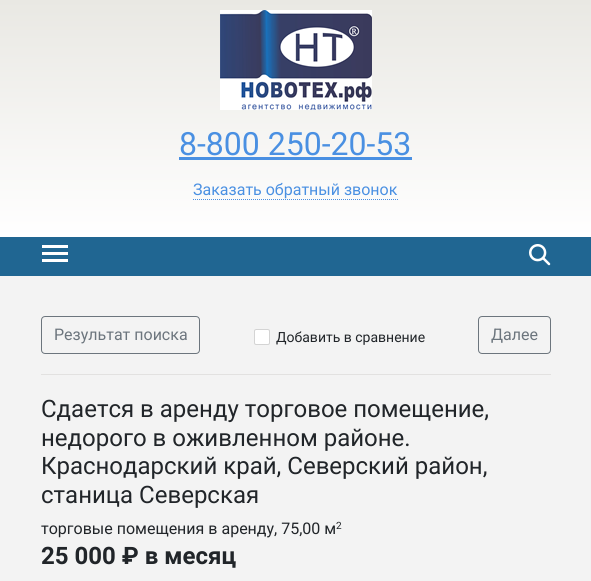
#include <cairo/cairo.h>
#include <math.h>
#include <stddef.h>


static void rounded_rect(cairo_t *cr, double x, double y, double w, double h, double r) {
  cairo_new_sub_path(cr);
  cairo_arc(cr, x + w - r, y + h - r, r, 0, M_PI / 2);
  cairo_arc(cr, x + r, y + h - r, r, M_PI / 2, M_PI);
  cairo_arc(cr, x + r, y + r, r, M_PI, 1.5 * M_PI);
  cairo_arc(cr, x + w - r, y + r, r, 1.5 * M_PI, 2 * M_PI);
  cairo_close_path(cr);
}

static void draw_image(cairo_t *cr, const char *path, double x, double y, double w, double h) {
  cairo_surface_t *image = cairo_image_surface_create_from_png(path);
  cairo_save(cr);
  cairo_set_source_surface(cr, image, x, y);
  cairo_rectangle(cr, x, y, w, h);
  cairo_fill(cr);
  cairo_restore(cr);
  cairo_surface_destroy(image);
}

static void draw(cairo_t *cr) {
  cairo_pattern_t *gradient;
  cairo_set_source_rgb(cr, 243 / 255.0, 243 / 255.0, 243 / 255.0);
  cairo_paint(cr);
  gradient = cairo_pattern_create_linear(0, 0, 0, 237);
  cairo_pattern_add_color_stop_rgba(gradient, 0, 233 / 255.0, 232 / 255.0, 227 / 255.0, 1);
  cairo_pattern_add_color_stop_rgba(gradient, 1, 1, 1, 1, 1);
  cairo_set_source(cr, gradient);
  cairo_pattern_destroy(gradient);
  cairo_rectangle(cr, 0, 0, 591, 237);
  cairo_fill(cr);
  draw_image(cr, "images/1.png", 220, 10, 152, 100);
  cairo_set_source_rgb(cr, 74 / 255.0, 144 / 255.0, 226 / 255.0);
  cairo_rectangle(cr, 179, 157, 233, 3);
  cairo_fill(cr);
  cairo_new_path(cr);
  cairo_move_to(cr, 193, 199.5);
  cairo_line_to(cr, 398, 199.5);
  cairo_set_line_width(cr, 1);
  cairo_set_dash(cr, (double[]){1, 1}, 2, 0);
  cairo_stroke(cr);
  cairo_set_source_rgb(cr, 32 / 255.0, 102 / 255.0, 146 / 255.0);
  cairo_rectangle(cr, 0, 237, 591, 39);
  cairo_fill(cr);
  draw_image(cr, "images/2.png", 42, 245, 26, 17);
  draw_image(cr, "images/3.png", 529, 244, 22, 22);
  cairo_set_source_rgb(cr, 226 / 255.0, 225 / 255.0, 224 / 255.0);
  cairo_rectangle(cr, 41, 374, 510, 1);
  cairo_fill(cr);
  rounded_rect(cr, 41.5, 316.5, 158, 37, 3.5);
  cairo_set_source_rgb(cr, 108 / 255.0, 117 / 255.0, 125 / 255.0);
  cairo_set_dash(cr, NULL, 0, 0);
  cairo_stroke(cr);
  draw_image(cr, "images/4.png", 254, 329, 16, 16);
  rounded_rect(cr, 478.5, 316.5, 72, 37, 3.5);
  cairo_stroke(cr);
  cairo_select_font_face(cr, "Roboto", CAIRO_FONT_SLANT_NORMAL, CAIRO_FONT_WEIGHT_NORMAL);
  cairo_set_font_size(cr, 32);
  cairo_set_source_rgb(cr, 74 / 255.0, 144 / 255.0, 226 / 255.0);
  cairo_move_to(cr, 179, 155);
  cairo_show_text(cr, "8-800 250-20-53");
  cairo_set_font_size(cr, 16);
  cairo_move_to(cr, 193, 195);
  cairo_show_text(cr, "Заказать обратный звонок");
  cairo_set_source_rgb(cr, 108 / 255.0, 117 / 255.0, 125 / 255.0);
  cairo_move_to(cr, 54, 340);
  cairo_show_text(cr, "Результат поиска");
  cairo_set_font_size(cr, 14);
  cairo_set_source_rgb(cr, 33 / 255.0, 37 / 255.0, 41 / 255.0);
  cairo_move_to(cr, 276, 342);
  cairo_show_text(cr, "Добавить в сравнение");
  cairo_set_font_size(cr, 16);
  cairo_set_source_rgb(cr, 108 / 255.0, 117 / 255.0, 125 / 255.0);
  cairo_move_to(cr, 491, 340);
  cairo_show_text(cr, "Далее");
  cairo_set_font_size(cr, 24);
  cairo_set_source_rgb(cr, 33 / 255.0, 37 / 255.0, 41 / 255.0);
  cairo_move_to(cr, 41, 417);
  cairo_show_text(cr, "Сдается в аренду торговое помещение,");
  cairo_move_to(cr, 41, 446);
  cairo_show_text(cr, "недорого в оживленном районе.");
  cairo_move_to(cr, 41, 474);
  cairo_show_text(cr, "Краснодарский край, Северский район,");
  cairo_move_to(cr, 41, 503);
  cairo_show_text(cr, "станица Северская");
  cairo_set_font_size(cr, 16);
  cairo_move_to(cr, 41, 534);
  cairo_show_text(cr, "торговые помещения в аренду, 75,00 м");
  cairo_set_font_size(cr, 10);
  cairo_move_to(cr, 336, 529);
  cairo_show_text(cr, "2");
  cairo_select_font_face(cr, "Roboto", CAIRO_FONT_SLANT_NORMAL, CAIRO_FONT_WEIGHT_BOLD);
  cairo_set_font_size(cr, 24);
  cairo_move_to(cr, 41, 564);
  cairo_show_text(cr, "25 000 ₽ в месяц");
}

int main(void) {
  cairo_surface_t *surface = cairo_image_surface_create(CAIRO_FORMAT_RGB24, 591, 581);
  cairo_t *cr = cairo_create(surface);
  cairo_font_options_t *options = cairo_font_options_create();
  cairo_font_options_set_hint_metrics(options, CAIRO_HINT_METRICS_OFF);
  cairo_font_options_set_hint_style(options, CAIRO_HINT_STYLE_NONE);
  cairo_set_font_options(cr, options);
  cairo_set_miter_limit(cr, 4);
  draw(cr);
  cairo_surface_write_to_png(surface, "out.png");
  cairo_font_options_destroy(options);
  cairo_destroy(cr);
  cairo_surface_destroy(surface);
  return 0;
}
